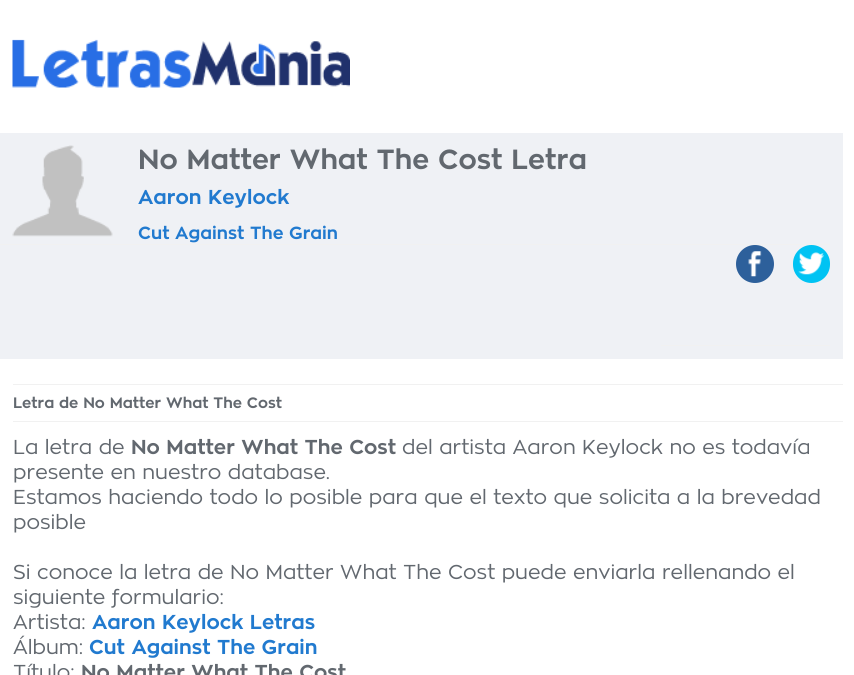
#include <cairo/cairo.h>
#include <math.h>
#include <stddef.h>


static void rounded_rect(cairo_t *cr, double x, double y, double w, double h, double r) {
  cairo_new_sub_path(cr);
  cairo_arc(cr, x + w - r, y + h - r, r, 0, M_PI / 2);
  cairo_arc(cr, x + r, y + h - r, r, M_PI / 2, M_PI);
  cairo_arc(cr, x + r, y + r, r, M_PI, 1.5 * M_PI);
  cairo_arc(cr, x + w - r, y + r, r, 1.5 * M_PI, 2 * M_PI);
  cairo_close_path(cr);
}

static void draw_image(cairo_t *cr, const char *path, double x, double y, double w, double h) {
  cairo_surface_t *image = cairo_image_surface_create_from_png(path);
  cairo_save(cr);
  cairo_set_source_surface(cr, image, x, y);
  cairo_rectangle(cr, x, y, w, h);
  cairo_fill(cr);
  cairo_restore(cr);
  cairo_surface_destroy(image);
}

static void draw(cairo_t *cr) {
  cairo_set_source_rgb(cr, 1, 1, 1);
  cairo_paint(cr);
  draw_image(cr, "images/1.png", 12, 39, 338, 49);
  cairo_set_source_rgb(cr, 239 / 255.0, 241 / 255.0, 245 / 255.0);
  cairo_rectangle(cr, 0, 133, 843, 226);
  cairo_fill(cr);
  draw_image(cr, "images/2.png", 12, 145, 101, 92);
  cairo_set_source_rgb(cr, 241 / 255.0, 241 / 255.0, 241 / 255.0);
  cairo_rectangle(cr, 0, 244, 830, 1);
  cairo_fill(cr);
  cairo_rectangle(cr, 661, 345, 169, 1);
  cairo_fill(cr);
  cairo_set_source_rgb(cr, 45 / 255.0, 96 / 255.0, 155 / 255.0);
  cairo_arc(cr, 755, 264, 19, 0, 2 * M_PI);
  cairo_fill(cr);
  draw_image(cr, "images/3.png", 748, 251, 14, 26);
  cairo_set_source_rgb(cr, 0, 195 / 255.0, 243 / 255.0);
  rounded_rect(cr, 793, 245, 37, 38, 18.5);
  cairo_fill(cr);
  draw_image(cr, "images/4.png", 798, 252, 26, 23);
  cairo_set_source_rgb(cr, 241 / 255.0, 241 / 255.0, 241 / 255.0);
  cairo_rectangle(cr, 13, 384, 830, 1);
  cairo_fill(cr);
  cairo_rectangle(cr, 13, 421, 830, 1);
  cairo_fill(cr);
  cairo_select_font_face(cr, "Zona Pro", CAIRO_FONT_SLANT_NORMAL, CAIRO_FONT_WEIGHT_BOLD);
  cairo_set_font_size(cr, 27.5);
  cairo_set_source_rgb(cr, 98 / 255.0, 104 / 255.0, 111 / 255.0);
  cairo_move_to(cr, 138, 169);
  cairo_show_text(cr, "No Matter What The Cost Letra");
  cairo_set_font_size(cr, 20);
  cairo_set_source_rgb(cr, 33 / 255.0, 122 / 255.0, 207 / 255.0);
  cairo_move_to(cr, 138, 204);
  cairo_show_text(cr, "Aaron Keylock");
  cairo_set_font_size(cr, 17.5);
  cairo_move_to(cr, 138, 239);
  cairo_show_text(cr, "Cut Against The Grain");
  cairo_set_font_size(cr, 15);
  cairo_set_source_rgb(cr, 98 / 255.0, 104 / 255.0, 111 / 255.0);
  cairo_move_to(cr, 13, 408);
  cairo_show_text(cr, "Letra de No Matter What The Cost");
  cairo_select_font_face(cr, "Zona Pro", CAIRO_FONT_SLANT_NORMAL, CAIRO_FONT_WEIGHT_NORMAL);
  cairo_set_font_size(cr, 20);
  cairo_move_to(cr, 13, 454);
  cairo_show_text(cr, "La letra de");
  cairo_select_font_face(cr, "Zona Pro", CAIRO_FONT_SLANT_NORMAL, CAIRO_FONT_WEIGHT_BOLD);
  cairo_move_to(cr, 131, 454);
  cairo_show_text(cr, "No Matter What The Cost");
  cairo_select_font_face(cr, "Zona Pro", CAIRO_FONT_SLANT_NORMAL, CAIRO_FONT_WEIGHT_NORMAL);
  cairo_move_to(cr, 402, 454);
  cairo_show_text(cr, "del artista Aaron Keylock no es todavía");
  cairo_move_to(cr, 13, 479);
  cairo_show_text(cr, "presente en nuestro database.");
  cairo_move_to(cr, 13, 504);
  cairo_show_text(cr, "Estamos haciendo todo lo posible para que el texto que solicita a la brevedad");
  cairo_move_to(cr, 13, 529);
  cairo_show_text(cr, "posible");
  cairo_move_to(cr, 13, 579);
  cairo_show_text(cr, "Si conoce la letra de No Matter What The Cost puede enviarla rellenando el");
  cairo_move_to(cr, 13, 604);
  cairo_show_text(cr, "siguiente formulario:");
  cairo_move_to(cr, 13, 629);
  cairo_show_text(cr, "Artista:");
  cairo_select_font_face(cr, "Zona Pro", CAIRO_FONT_SLANT_NORMAL, CAIRO_FONT_WEIGHT_BOLD);
  cairo_set_source_rgb(cr, 33 / 255.0, 122 / 255.0, 207 / 255.0);
  cairo_move_to(cr, 92, 629);
  cairo_show_text(cr, "Aaron Keylock Letras");
  cairo_select_font_face(cr, "Zona Pro", CAIRO_FONT_SLANT_NORMAL, CAIRO_FONT_WEIGHT_NORMAL);
  cairo_set_source_rgb(cr, 98 / 255.0, 104 / 255.0, 111 / 255.0);
  cairo_move_to(cr, 13, 654);
  cairo_show_text(cr, "Álbum:");
  cairo_select_font_face(cr, "Zona Pro", CAIRO_FONT_SLANT_NORMAL, CAIRO_FONT_WEIGHT_BOLD);
  cairo_set_source_rgb(cr, 33 / 255.0, 122 / 255.0, 207 / 255.0);
  cairo_move_to(cr, 89, 654);
  cairo_show_text(cr, "Cut Against The Grain");
  cairo_select_font_face(cr, "Zona Pro", CAIRO_FONT_SLANT_NORMAL, CAIRO_FONT_WEIGHT_NORMAL);
  cairo_set_source_rgb(cr, 98 / 255.0, 104 / 255.0, 111 / 255.0);
  cairo_move_to(cr, 13, 679);
  cairo_show_text(cr, "Título:");
  cairo_select_font_face(cr, "Zona Pro", CAIRO_FONT_SLANT_NORMAL, CAIRO_FONT_WEIGHT_BOLD);
  cairo_move_to(cr, 81, 679);
  cairo_show_text(cr, "No Matter What The Cost");
}

int main(void) {
  cairo_surface_t *surface = cairo_image_surface_create(CAIRO_FORMAT_RGB24, 854, 675);
  cairo_t *cr = cairo_create(surface);
  cairo_font_options_t *options = cairo_font_options_create();
  cairo_font_options_set_hint_metrics(options, CAIRO_HINT_METRICS_OFF);
  cairo_font_options_set_hint_style(options, CAIRO_HINT_STYLE_NONE);
  cairo_set_font_options(cr, options);
  cairo_set_miter_limit(cr, 4);
  draw(cr);
  cairo_surface_write_to_png(surface, "out.png");
  cairo_font_options_destroy(options);
  cairo_destroy(cr);
  cairo_surface_destroy(surface);
  return 0;
}
